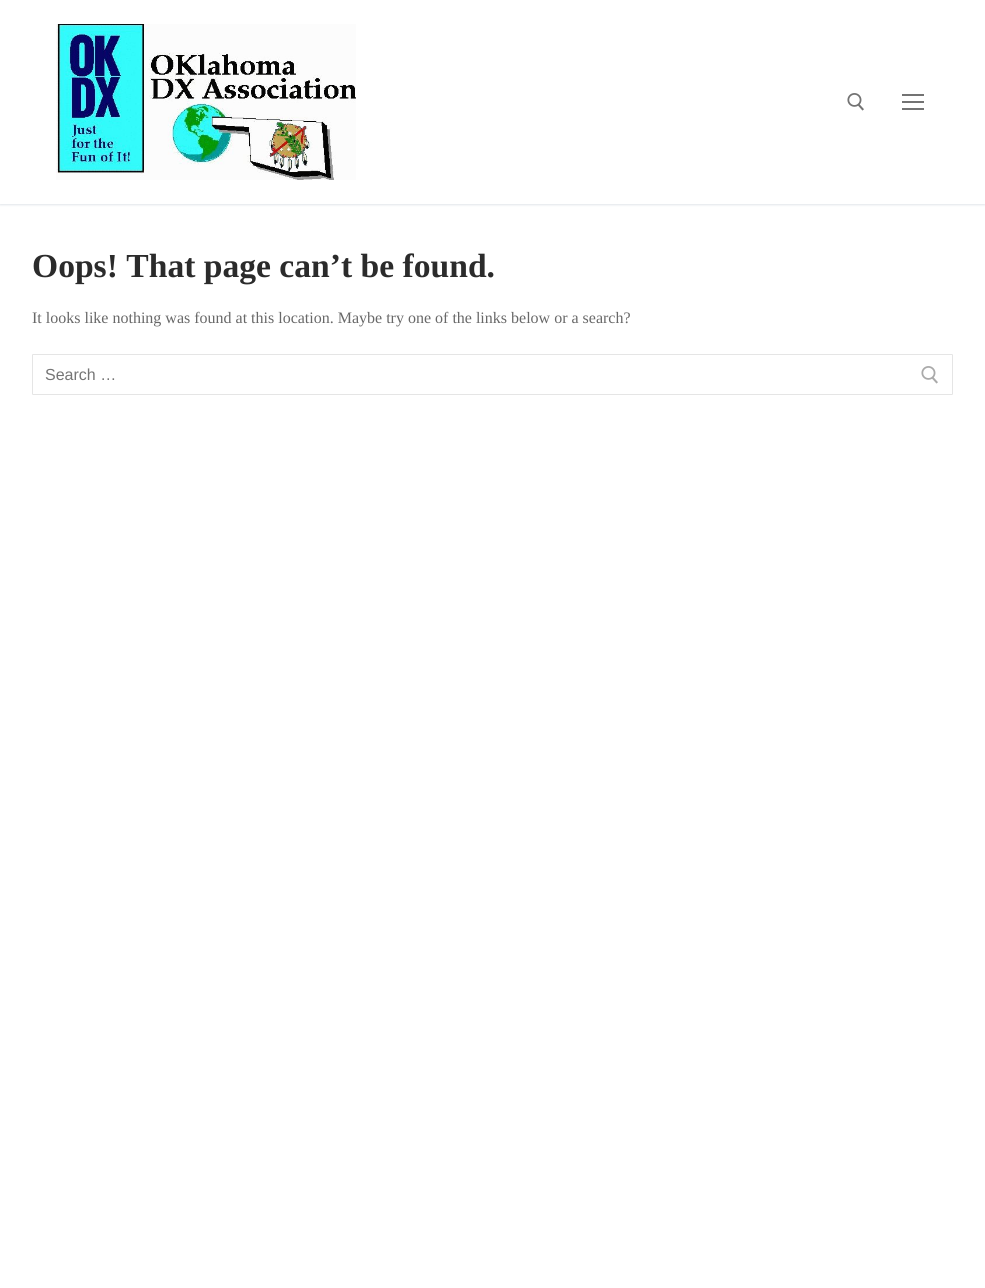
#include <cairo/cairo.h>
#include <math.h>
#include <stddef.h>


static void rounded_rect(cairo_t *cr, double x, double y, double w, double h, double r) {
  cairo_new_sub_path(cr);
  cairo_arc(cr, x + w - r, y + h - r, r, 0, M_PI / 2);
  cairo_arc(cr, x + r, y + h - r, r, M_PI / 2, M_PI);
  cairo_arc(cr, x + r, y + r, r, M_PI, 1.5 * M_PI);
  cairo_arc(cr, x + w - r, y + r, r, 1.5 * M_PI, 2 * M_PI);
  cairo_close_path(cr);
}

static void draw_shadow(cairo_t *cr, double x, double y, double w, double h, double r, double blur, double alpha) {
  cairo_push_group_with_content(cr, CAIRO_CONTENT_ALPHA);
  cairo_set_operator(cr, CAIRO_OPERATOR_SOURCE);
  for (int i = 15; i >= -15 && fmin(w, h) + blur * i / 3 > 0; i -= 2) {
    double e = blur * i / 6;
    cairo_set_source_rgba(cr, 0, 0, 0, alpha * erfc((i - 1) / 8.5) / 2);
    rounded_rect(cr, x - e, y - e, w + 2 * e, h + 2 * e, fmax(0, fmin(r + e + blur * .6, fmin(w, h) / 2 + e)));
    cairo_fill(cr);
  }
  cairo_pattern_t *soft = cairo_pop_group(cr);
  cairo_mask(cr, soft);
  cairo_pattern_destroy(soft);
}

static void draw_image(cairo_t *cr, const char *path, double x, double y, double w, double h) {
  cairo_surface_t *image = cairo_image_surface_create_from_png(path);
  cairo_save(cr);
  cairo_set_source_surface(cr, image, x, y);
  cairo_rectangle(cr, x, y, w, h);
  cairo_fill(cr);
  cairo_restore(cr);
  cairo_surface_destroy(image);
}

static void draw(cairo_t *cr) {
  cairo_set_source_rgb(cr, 1, 1, 1);
  cairo_paint(cr);
  cairo_save(cr);
  cairo_rectangle(cr, 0, 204, 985, 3);
  cairo_clip(cr);
  cairo_set_source_rgb(cr, 225 / 255.0, 229 / 255.0, 234 / 255.0);
  draw_shadow(cr, 0, 1, 985, 204, 0, 1, 1);
  cairo_restore(cr);
  draw_image(cr, "images/1.png", 56, 24, 300, 156);
  draw_image(cr, "images/2.png", 847, 93, 17, 18);
  cairo_set_source_rgb(cr, 115 / 255.0, 115 / 255.0, 115 / 255.0);
  cairo_rectangle(cr, 902, 101, 22, 2);
  cairo_fill(cr);
  cairo_rectangle(cr, 902, 94, 22, 2);
  cairo_fill(cr);
  cairo_rectangle(cr, 902, 108, 22, 2);
  cairo_fill(cr);
  rounded_rect(cr, 32.5, 354.5, 920, 40, 0.5);
  cairo_set_source_rgb(cr, 229 / 255.0, 229 / 255.0, 229 / 255.0);
  cairo_set_line_width(cr, 1);
  cairo_stroke(cr);
  draw_image(cr, "images/3.png", 921, 366, 17, 18);
  cairo_select_font_face(cr, "Liberation Serif", CAIRO_FONT_SLANT_NORMAL, CAIRO_FONT_WEIGHT_BOLD);
  cairo_set_font_size(cr, 33.6);
  cairo_set_source_rgb(cr, 43 / 255.0, 43 / 255.0, 43 / 255.0);
  cairo_move_to(cr, 32, 277);
  cairo_show_text(cr, "Oops! That page can’t be found.");
  cairo_select_font_face(cr, "Liberation Serif", CAIRO_FONT_SLANT_NORMAL, CAIRO_FONT_WEIGHT_NORMAL);
  cairo_set_font_size(cr, 16);
  cairo_set_source_rgb(cr, 104 / 255.0, 104 / 255.0, 104 / 255.0);
  cairo_move_to(cr, 32, 323);
  cairo_show_text(cr, "It looks like nothing was found at this location. Maybe try one of the links below or a search?");
  cairo_select_font_face(cr, "Liberation Sans", CAIRO_FONT_SLANT_NORMAL, CAIRO_FONT_WEIGHT_NORMAL);
  cairo_set_source_rgb(cr, 117 / 255.0, 117 / 255.0, 117 / 255.0);
  cairo_move_to(cr, 45, 380);
  cairo_show_text(cr, "Search …");
}

int main(void) {
  cairo_surface_t *surface = cairo_image_surface_create(CAIRO_FORMAT_RGB24, 985, 1288);
  cairo_t *cr = cairo_create(surface);
  cairo_font_options_t *options = cairo_font_options_create();
  cairo_font_options_set_hint_metrics(options, CAIRO_HINT_METRICS_OFF);
  cairo_font_options_set_hint_style(options, CAIRO_HINT_STYLE_NONE);
  cairo_set_font_options(cr, options);
  cairo_set_miter_limit(cr, 4);
  draw(cr);
  cairo_surface_write_to_png(surface, "out.png");
  cairo_font_options_destroy(options);
  cairo_destroy(cr);
  cairo_surface_destroy(surface);
  return 0;
}
